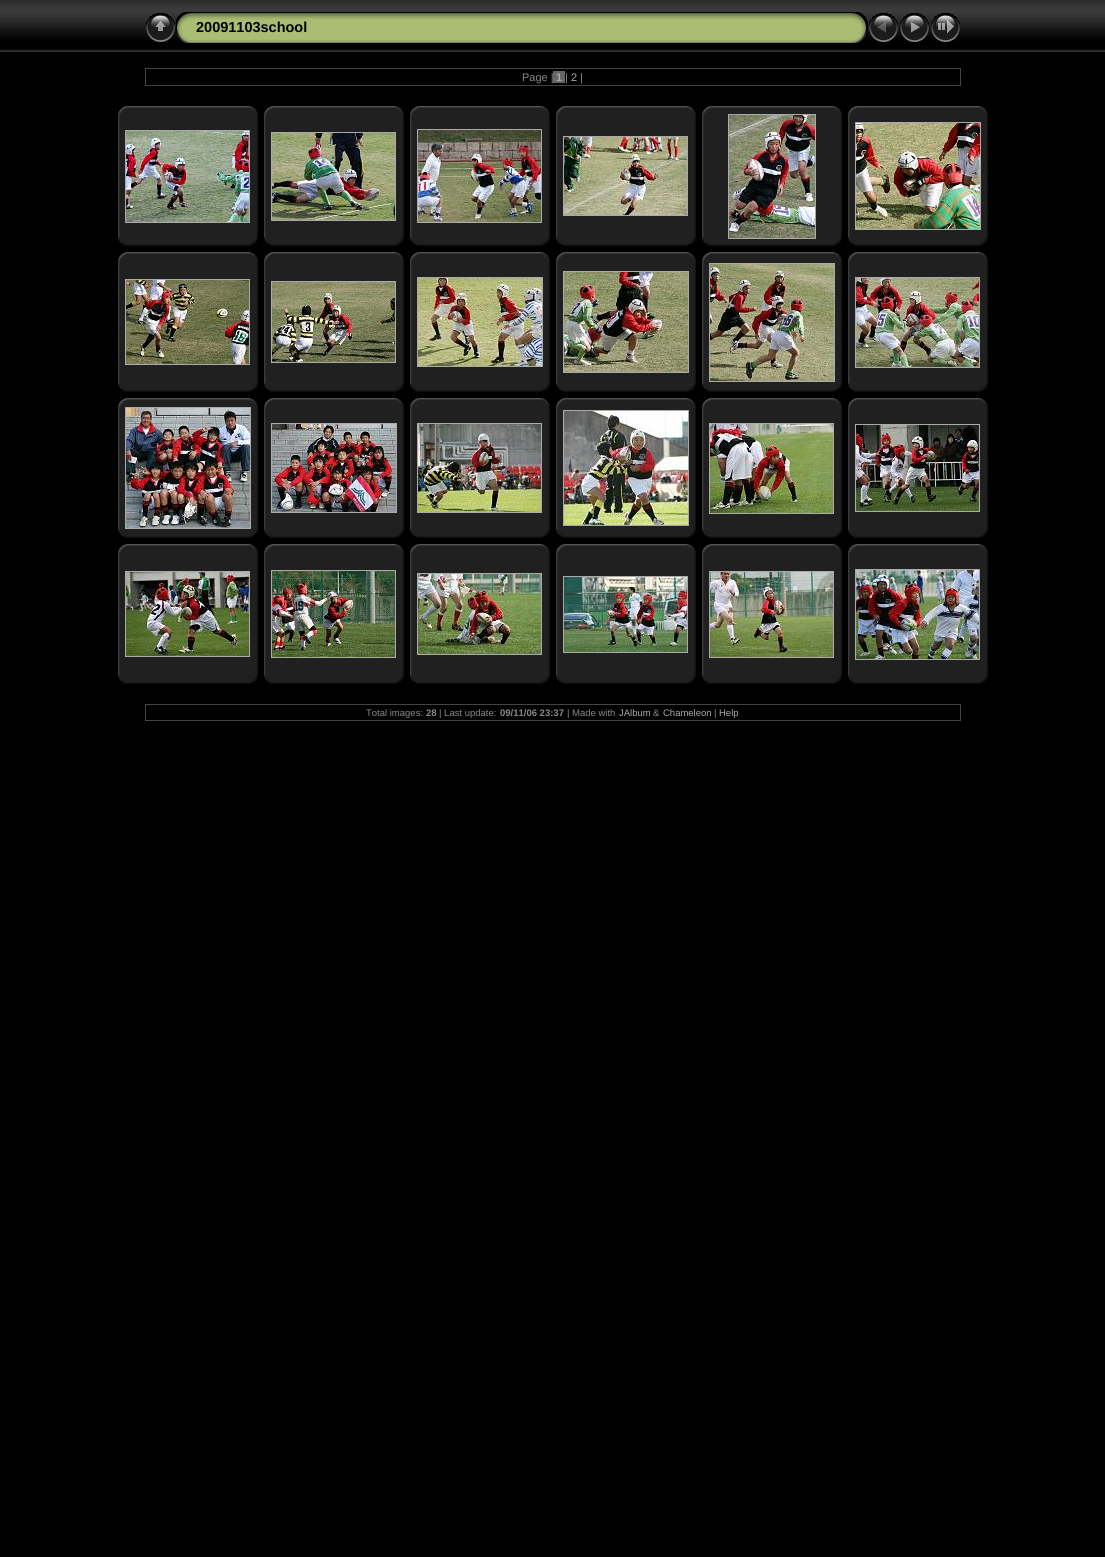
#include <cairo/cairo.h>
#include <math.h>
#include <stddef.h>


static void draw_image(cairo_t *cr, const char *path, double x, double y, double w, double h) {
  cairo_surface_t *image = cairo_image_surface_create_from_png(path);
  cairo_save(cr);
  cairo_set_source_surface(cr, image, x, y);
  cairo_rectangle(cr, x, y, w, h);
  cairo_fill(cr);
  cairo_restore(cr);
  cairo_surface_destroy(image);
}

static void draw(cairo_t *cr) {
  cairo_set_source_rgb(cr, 0, 0, 0);
  cairo_paint(cr);
  draw_image(cr, "images/1.png", 0, 0, 1105, 52);
  draw_image(cr, "images/2.png", 146, 13, 29, 29);
  draw_image(cr, "images/3.png", 176, 12, 20, 31);
  draw_image(cr, "images/4.png", 196, 12, 652, 31);
  draw_image(cr, "images/5.png", 848, 12, 20, 31);
  draw_image(cr, "images/6.png", 869, 13, 29, 29);
  draw_image(cr, "images/7.png", 900, 13, 29, 29);
  draw_image(cr, "images/8.png", 931, 13, 29, 29);
  cairo_set_source_rgb(cr, 68 / 255.0, 68 / 255.0, 68 / 255.0);
  cairo_rectangle(cr, 145, 68, 816, 1);
  cairo_fill(cr);
  cairo_rectangle(cr, 960, 68, 1, 18);
  cairo_fill(cr);
  cairo_rectangle(cr, 145, 85, 816, 1);
  cairo_fill(cr);
  cairo_rectangle(cr, 145, 68, 1, 18);
  cairo_fill(cr);
  cairo_set_source_rgb(cr, 102 / 255.0, 102 / 255.0, 102 / 255.0);
  cairo_rectangle(cr, 553, 71, 12, 12);
  cairo_fill(cr);
  draw_image(cr, "images/9.png", 118, 106, 140, 140);
  cairo_rectangle(cr, 125.5, 130.5, 124, 92);
  cairo_set_source_rgb(cr, 170 / 255.0, 170 / 255.0, 170 / 255.0);
  cairo_set_line_width(cr, 1);
  cairo_stroke(cr);
  draw_image(cr, "images/10.png", 126, 131, 123, 91);
  draw_image(cr, "images/9.png", 264, 106, 140, 140);
  cairo_rectangle(cr, 271.5, 132.5, 124, 88);
  cairo_stroke(cr);
  draw_image(cr, "images/11.png", 272, 133, 123, 87);
  draw_image(cr, "images/9.png", 410, 106, 140, 140);
  cairo_rectangle(cr, 417.5, 129.5, 124, 93);
  cairo_stroke(cr);
  draw_image(cr, "images/12.png", 418, 130, 123, 92);
  draw_image(cr, "images/9.png", 556, 106, 140, 140);
  cairo_rectangle(cr, 563.5, 136.5, 124, 79);
  cairo_stroke(cr);
  draw_image(cr, "images/13.png", 564, 137, 123, 78);
  draw_image(cr, "images/9.png", 702, 106, 140, 140);
  cairo_rectangle(cr, 728.5, 114.5, 87, 124);
  cairo_stroke(cr);
  draw_image(cr, "images/14.png", 729, 115, 86, 123);
  draw_image(cr, "images/9.png", 848, 106, 140, 140);
  cairo_rectangle(cr, 855.5, 122.5, 125, 107);
  cairo_stroke(cr);
  draw_image(cr, "images/15.png", 856, 123, 124, 106);
  draw_image(cr, "images/9.png", 118, 252, 140, 140);
  cairo_rectangle(cr, 125.5, 279.5, 124, 85);
  cairo_stroke(cr);
  draw_image(cr, "images/16.png", 126, 280, 123, 84);
  draw_image(cr, "images/9.png", 264, 252, 140, 140);
  cairo_rectangle(cr, 271.5, 281.5, 124, 81);
  cairo_stroke(cr);
  draw_image(cr, "images/17.png", 272, 282, 123, 80);
  draw_image(cr, "images/9.png", 410, 252, 140, 140);
  cairo_rectangle(cr, 417.5, 277.5, 125, 89);
  cairo_stroke(cr);
  draw_image(cr, "images/18.png", 418, 278, 124, 88);
  draw_image(cr, "images/9.png", 556, 252, 140, 140);
  cairo_rectangle(cr, 563.5, 271.5, 125, 101);
  cairo_stroke(cr);
  draw_image(cr, "images/19.png", 564, 272, 124, 100);
  draw_image(cr, "images/9.png", 702, 252, 140, 140);
  cairo_rectangle(cr, 709.5, 263.5, 125, 118);
  cairo_stroke(cr);
  draw_image(cr, "images/20.png", 710, 264, 124, 117);
  draw_image(cr, "images/9.png", 848, 252, 140, 140);
  cairo_rectangle(cr, 855.5, 277.5, 124, 90);
  cairo_stroke(cr);
  draw_image(cr, "images/21.png", 856, 278, 123, 89);
  draw_image(cr, "images/9.png", 118, 398, 140, 140);
  cairo_rectangle(cr, 125.5, 407.5, 125, 121);
  cairo_stroke(cr);
  draw_image(cr, "images/22.png", 126, 408, 124, 120);
  draw_image(cr, "images/9.png", 264, 398, 140, 140);
  cairo_rectangle(cr, 271.5, 423.5, 125, 89);
  cairo_stroke(cr);
  draw_image(cr, "images/23.png", 272, 424, 124, 88);
  draw_image(cr, "images/9.png", 410, 398, 140, 140);
  cairo_rectangle(cr, 417.5, 423.5, 124, 89);
  cairo_stroke(cr);
  draw_image(cr, "images/24.png", 418, 424, 123, 88);
  draw_image(cr, "images/9.png", 556, 398, 140, 140);
  cairo_rectangle(cr, 563.5, 410.5, 125, 115);
  cairo_stroke(cr);
  draw_image(cr, "images/25.png", 564, 411, 124, 114);
  draw_image(cr, "images/9.png", 702, 398, 140, 140);
  cairo_rectangle(cr, 709.5, 423.5, 124, 90);
  cairo_stroke(cr);
  draw_image(cr, "images/26.png", 710, 424, 123, 89);
  draw_image(cr, "images/9.png", 848, 398, 140, 140);
  cairo_rectangle(cr, 855.5, 424.5, 124, 87);
  cairo_stroke(cr);
  draw_image(cr, "images/27.png", 856, 425, 123, 86);
  draw_image(cr, "images/9.png", 118, 544, 140, 140);
  cairo_rectangle(cr, 125.5, 571.5, 124, 85);
  cairo_stroke(cr);
  draw_image(cr, "images/28.png", 126, 572, 123, 84);
  draw_image(cr, "images/9.png", 264, 544, 140, 140);
  cairo_rectangle(cr, 271.5, 570.5, 124, 87);
  cairo_stroke(cr);
  draw_image(cr, "images/29.png", 272, 571, 123, 86);
  draw_image(cr, "images/9.png", 410, 544, 140, 140);
  cairo_rectangle(cr, 417.5, 573.5, 124, 81);
  cairo_stroke(cr);
  draw_image(cr, "images/30.png", 418, 574, 123, 80);
  draw_image(cr, "images/9.png", 556, 544, 140, 140);
  cairo_rectangle(cr, 563.5, 576.5, 124, 76);
  cairo_stroke(cr);
  draw_image(cr, "images/31.png", 564, 577, 123, 75);
  draw_image(cr, "images/9.png", 702, 544, 140, 140);
  cairo_rectangle(cr, 709.5, 571.5, 124, 86);
  cairo_stroke(cr);
  draw_image(cr, "images/32.png", 710, 572, 123, 85);
  draw_image(cr, "images/9.png", 848, 544, 140, 140);
  cairo_rectangle(cr, 855.5, 569.5, 124, 90);
  cairo_stroke(cr);
  draw_image(cr, "images/33.png", 856, 570, 123, 89);
  cairo_set_source_rgb(cr, 68 / 255.0, 68 / 255.0, 68 / 255.0);
  cairo_rectangle(cr, 145, 704, 816, 1);
  cairo_fill(cr);
  cairo_rectangle(cr, 960, 704, 1, 17);
  cairo_fill(cr);
  cairo_rectangle(cr, 145, 720, 816, 1);
  cairo_fill(cr);
  cairo_rectangle(cr, 145, 704, 1, 17);
  cairo_fill(cr);
  cairo_select_font_face(cr, "Liberation Sans", CAIRO_FONT_SLANT_NORMAL, CAIRO_FONT_WEIGHT_BOLD);
  cairo_set_font_size(cr, 14.5);
  cairo_set_source_rgb(cr, 0, 0, 0);
  cairo_move_to(cr, 196, 32);
  cairo_show_text(cr, "20091103school");
  cairo_select_font_face(cr, "Liberation Sans", CAIRO_FONT_SLANT_NORMAL, CAIRO_FONT_WEIGHT_NORMAL);
  cairo_set_font_size(cr, 11);
  cairo_set_source_rgb(cr, 136 / 255.0, 136 / 255.0, 136 / 255.0);
  cairo_move_to(cr, 522, 81);
  cairo_show_text(cr, "Page |");
  cairo_select_font_face(cr, "Liberation Sans", CAIRO_FONT_SLANT_NORMAL, CAIRO_FONT_WEIGHT_BOLD);
  cairo_set_source_rgb(cr, 170 / 255.0, 170 / 255.0, 170 / 255.0);
  cairo_move_to(cr, 556, 81);
  cairo_show_text(cr, "1");
  cairo_select_font_face(cr, "Liberation Sans", CAIRO_FONT_SLANT_NORMAL, CAIRO_FONT_WEIGHT_NORMAL);
  cairo_set_source_rgb(cr, 136 / 255.0, 136 / 255.0, 136 / 255.0);
  cairo_move_to(cr, 565, 81);
  cairo_show_text(cr, "|");
  cairo_set_source_rgb(cr, 170 / 255.0, 170 / 255.0, 170 / 255.0);
  cairo_move_to(cr, 571, 81);
  cairo_show_text(cr, "2");
  cairo_set_source_rgb(cr, 136 / 255.0, 136 / 255.0, 136 / 255.0);
  cairo_move_to(cr, 580, 81);
  cairo_show_text(cr, "|");
  cairo_set_font_size(cr, 9.5);
  cairo_move_to(cr, 366, 716);
  cairo_show_text(cr, "Total images:");
  cairo_select_font_face(cr, "Liberation Sans", CAIRO_FONT_SLANT_NORMAL, CAIRO_FONT_WEIGHT_BOLD);
  cairo_move_to(cr, 426, 716);
  cairo_show_text(cr, "28");
  cairo_select_font_face(cr, "Liberation Sans", CAIRO_FONT_SLANT_NORMAL, CAIRO_FONT_WEIGHT_NORMAL);
  cairo_move_to(cr, 439, 716);
  cairo_show_text(cr, "| Last update:");
  cairo_select_font_face(cr, "Liberation Sans", CAIRO_FONT_SLANT_NORMAL, CAIRO_FONT_WEIGHT_BOLD);
  cairo_move_to(cr, 500, 716);
  cairo_show_text(cr, "09/11/06 23:37");
  cairo_select_font_face(cr, "Liberation Sans", CAIRO_FONT_SLANT_NORMAL, CAIRO_FONT_WEIGHT_NORMAL);
  cairo_move_to(cr, 567, 716);
  cairo_show_text(cr, "| Made with");
  cairo_set_source_rgb(cr, 170 / 255.0, 170 / 255.0, 170 / 255.0);
  cairo_move_to(cr, 619, 716);
  cairo_show_text(cr, "JAlbum");
  cairo_set_source_rgb(cr, 136 / 255.0, 136 / 255.0, 136 / 255.0);
  cairo_move_to(cr, 653, 716);
  cairo_show_text(cr, "&");
  cairo_set_source_rgb(cr, 170 / 255.0, 170 / 255.0, 170 / 255.0);
  cairo_move_to(cr, 663, 716);
  cairo_show_text(cr, "Chameleon");
  cairo_set_source_rgb(cr, 136 / 255.0, 136 / 255.0, 136 / 255.0);
  cairo_move_to(cr, 714, 716);
  cairo_show_text(cr, "|");
  cairo_set_source_rgb(cr, 170 / 255.0, 170 / 255.0, 170 / 255.0);
  cairo_move_to(cr, 719, 716);
  cairo_show_text(cr, "Help");
}

int main(void) {
  cairo_surface_t *surface = cairo_image_surface_create(CAIRO_FORMAT_RGB24, 1105, 1557);
  cairo_t *cr = cairo_create(surface);
  cairo_font_options_t *options = cairo_font_options_create();
  cairo_font_options_set_hint_metrics(options, CAIRO_HINT_METRICS_OFF);
  cairo_font_options_set_hint_style(options, CAIRO_HINT_STYLE_NONE);
  cairo_set_font_options(cr, options);
  cairo_set_miter_limit(cr, 4);
  draw(cr);
  cairo_surface_write_to_png(surface, "out.png");
  cairo_font_options_destroy(options);
  cairo_destroy(cr);
  cairo_surface_destroy(surface);
  return 0;
}
